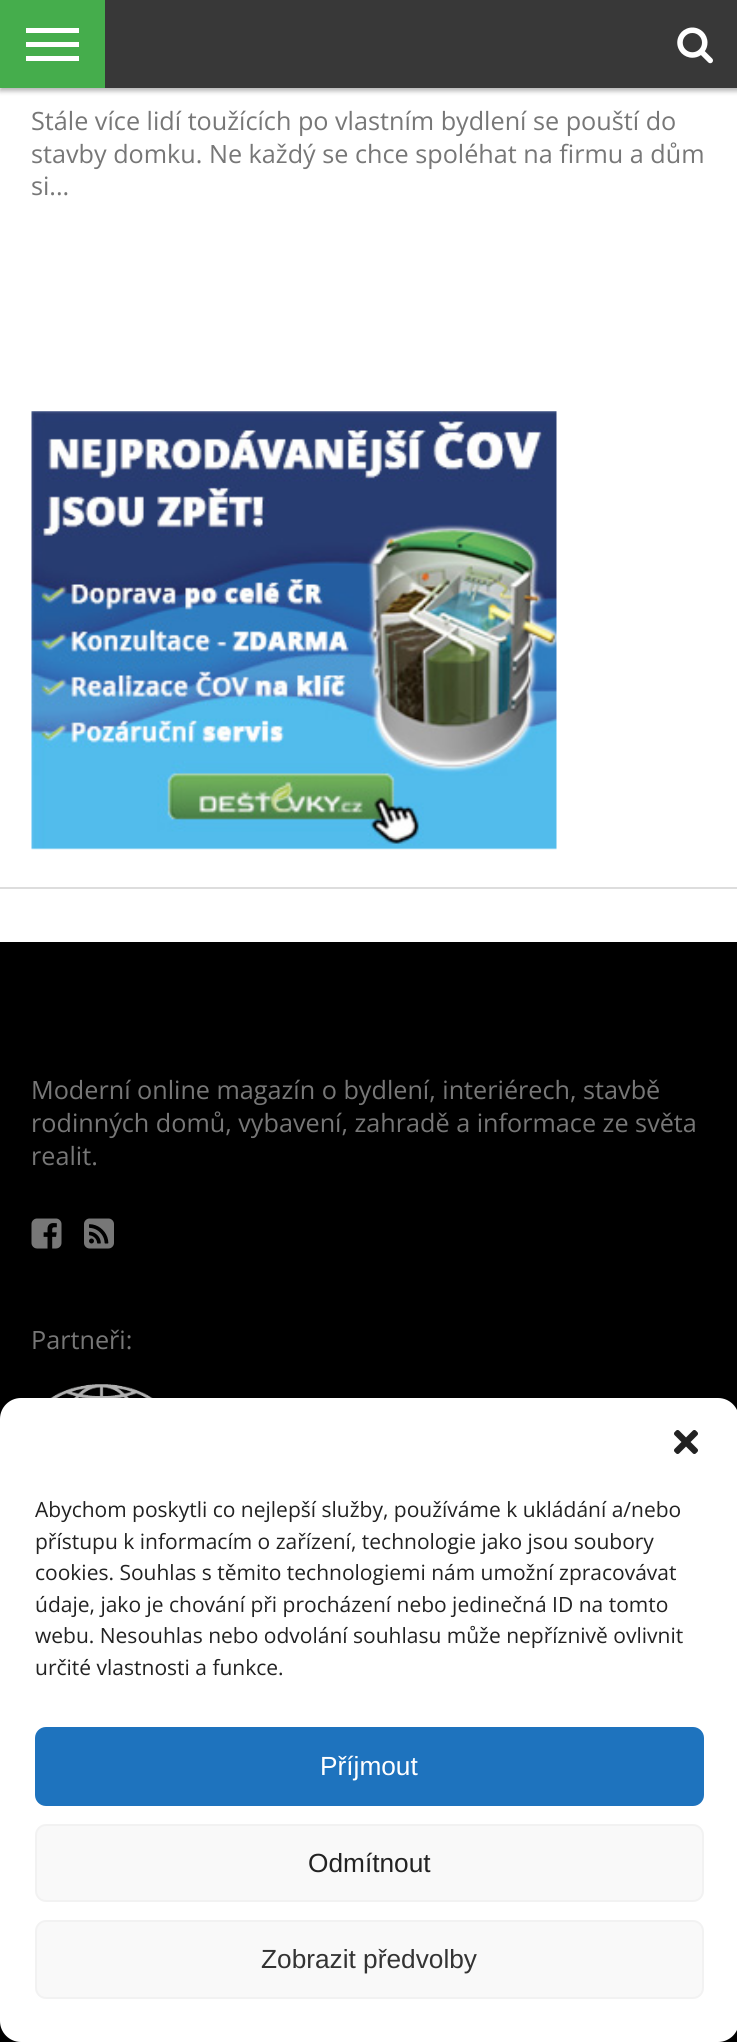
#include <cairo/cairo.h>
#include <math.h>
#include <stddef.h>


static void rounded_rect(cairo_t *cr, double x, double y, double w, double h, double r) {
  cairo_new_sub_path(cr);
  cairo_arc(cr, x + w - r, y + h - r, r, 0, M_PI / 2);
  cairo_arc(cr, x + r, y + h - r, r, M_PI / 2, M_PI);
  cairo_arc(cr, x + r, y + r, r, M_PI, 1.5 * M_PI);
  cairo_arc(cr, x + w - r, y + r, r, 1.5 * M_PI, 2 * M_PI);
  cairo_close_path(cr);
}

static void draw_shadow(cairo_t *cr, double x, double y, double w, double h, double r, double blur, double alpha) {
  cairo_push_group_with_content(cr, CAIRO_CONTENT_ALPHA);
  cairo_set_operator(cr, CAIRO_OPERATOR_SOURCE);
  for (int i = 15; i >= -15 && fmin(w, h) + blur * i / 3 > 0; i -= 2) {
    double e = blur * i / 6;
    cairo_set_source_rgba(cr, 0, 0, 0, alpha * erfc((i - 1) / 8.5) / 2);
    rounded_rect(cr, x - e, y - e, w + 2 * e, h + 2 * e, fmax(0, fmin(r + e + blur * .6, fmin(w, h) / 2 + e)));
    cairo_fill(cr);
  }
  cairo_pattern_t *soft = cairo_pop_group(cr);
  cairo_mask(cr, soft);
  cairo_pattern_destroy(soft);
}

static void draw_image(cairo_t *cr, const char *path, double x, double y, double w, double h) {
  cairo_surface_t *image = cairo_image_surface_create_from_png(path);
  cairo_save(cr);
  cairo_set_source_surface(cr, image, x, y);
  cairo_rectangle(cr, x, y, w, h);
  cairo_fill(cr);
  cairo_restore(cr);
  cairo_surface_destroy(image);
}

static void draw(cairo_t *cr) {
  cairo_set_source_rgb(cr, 1, 1, 1);
  cairo_paint(cr);
  cairo_set_source_rgb(cr, 0, 0, 0);
  draw_shadow(cr, 0, 4, 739, 87, 0, 2.5, 0.3);
  cairo_set_source_rgb(cr, 56 / 255.0, 56 / 255.0, 56 / 255.0);
  cairo_rectangle(cr, 105, 0, 632, 88);
  cairo_fill(cr);
  cairo_set_source_rgb(cr, 69 / 255.0, 173 / 255.0, 76 / 255.0);
  cairo_rectangle(cr, 0, 0, 105, 88);
  cairo_fill(cr);
  cairo_set_source_rgb(cr, 1, 1, 1);
  cairo_rectangle(cr, 26, 28, 53, 5);
  cairo_fill(cr);
  cairo_rectangle(cr, 26, 42, 53, 5);
  cairo_fill(cr);
  cairo_rectangle(cr, 26, 56, 53, 5);
  cairo_fill(cr);
  draw_image(cr, "images/1.png", 677, 27, 36, 37);
  cairo_set_source_rgb(cr, 221 / 255.0, 221 / 255.0, 221 / 255.0);
  cairo_rectangle(cr, 0, 887, 737, 2);
  cairo_fill(cr);
  draw_image(cr, "images/2.png", 31, 411, 526, 439);
  cairo_set_source_rgb(cr, 0, 0, 0);
  cairo_rectangle(cr, 0, 942, 737, 1100);
  cairo_fill(cr);
  draw_image(cr, "images/3.png", 31, 1218, 31, 31);
  draw_image(cr, "images/4.png", 84, 1218, 30, 31);
  draw_image(cr, "images/5.png", 50, 1384, 103, 14);
  cairo_set_source_rgb(cr, 1, 1, 1);
  rounded_rect(cr, 0, 1398, 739, 644, 21);
  cairo_fill(cr);
  draw_image(cr, "images/6.png", 674, 1430, 24, 24);
  cairo_set_source_rgb(cr, 30 / 255.0, 115 / 255.0, 190 / 255.0);
  rounded_rect(cr, 36, 1728, 667, 77, 10);
  cairo_fill_preserve(cr);
  cairo_stroke(cr);
  cairo_set_source_rgb(cr, 249 / 255.0, 249 / 255.0, 249 / 255.0);
  rounded_rect(cr, 36, 1825, 667, 76, 10);
  cairo_fill_preserve(cr);
  cairo_set_source_rgb(cr, 242 / 255.0, 242 / 255.0, 242 / 255.0);
  cairo_stroke(cr);
  cairo_set_source_rgb(cr, 249 / 255.0, 249 / 255.0, 249 / 255.0);
  rounded_rect(cr, 36, 1921, 667, 77, 10);
  cairo_fill_preserve(cr);
  cairo_set_source_rgb(cr, 242 / 255.0, 242 / 255.0, 242 / 255.0);
  cairo_stroke(cr);
  cairo_select_font_face(cr, "Open Sans", CAIRO_FONT_SLANT_NORMAL, CAIRO_FONT_WEIGHT_NORMAL);
  cairo_set_font_size(cr, 25.2);
  cairo_set_source_rgb(cr, 119 / 255.0, 119 / 255.0, 119 / 255.0);
  cairo_move_to(cr, 31, 130);
  cairo_show_text(cr, "Stále více lidí toužících po vlastním bydlení se pouští do");
  cairo_move_to(cr, 31, 163);
  cairo_show_text(cr, "stavby domku. Ne každý se chce spoléhat na firmu a dům");
  cairo_move_to(cr, 31, 195);
  cairo_show_text(cr, "si...");
  cairo_move_to(cr, 31, 1099);
  cairo_show_text(cr, "Moderní online magazín o bydlení, interiérech, stavbě");
  cairo_move_to(cr, 31, 1132);
  cairo_show_text(cr, "rodinných domů, vybavení, zahradě a informace ze světa");
  cairo_move_to(cr, 31, 1165);
  cairo_show_text(cr, "realit.");
  cairo_move_to(cr, 31, 1349);
  cairo_show_text(cr, "Partneři:");
  cairo_set_font_size(cr, 21);
  cairo_set_source_rgb(cr, 34 / 255.0, 34 / 255.0, 34 / 255.0);
  cairo_move_to(cr, 35, 1517);
  cairo_show_text(cr, "Abychom poskytli co nejlepší služby, používáme k ukládání a/nebo");
  cairo_move_to(cr, 35, 1549);
  cairo_show_text(cr, "přístupu k informacím o zařízení, technologie jako jsou soubory");
  cairo_move_to(cr, 35, 1580);
  cairo_show_text(cr, "cookies. Souhlas s těmito technologiemi nám umožní zpracovávat");
  cairo_move_to(cr, 35, 1612);
  cairo_show_text(cr, "údaje, jako je chování při procházení nebo jedinečná ID na tomto");
  cairo_move_to(cr, 35, 1643);
  cairo_show_text(cr, "webu. Nesouhlas nebo odvolání souhlasu může nepříznivě ovlivnit");
  cairo_move_to(cr, 35, 1675);
  cairo_show_text(cr, "určité vlastnosti a funkce.");
  cairo_select_font_face(cr, "Liberation Sans", CAIRO_FONT_SLANT_NORMAL, CAIRO_FONT_WEIGHT_NORMAL);
  cairo_set_font_size(cr, 26.25);
  cairo_set_source_rgb(cr, 1, 1, 1);
  cairo_move_to(cr, 320, 1775);
  cairo_show_text(cr, "Příjmout");
  cairo_set_source_rgb(cr, 34 / 255.0, 34 / 255.0, 34 / 255.0);
  cairo_move_to(cr, 308, 1872);
  cairo_show_text(cr, "Odmítnout");
  cairo_set_source_rgb(cr, 51 / 255.0, 51 / 255.0, 51 / 255.0);
  cairo_move_to(cr, 261, 1968);
  cairo_show_text(cr, "Zobrazit předvolby");
}

int main(void) {
  cairo_surface_t *surface = cairo_image_surface_create(CAIRO_FORMAT_RGB24, 737, 2042);
  cairo_t *cr = cairo_create(surface);
  cairo_font_options_t *options = cairo_font_options_create();
  cairo_font_options_set_hint_metrics(options, CAIRO_HINT_METRICS_OFF);
  cairo_font_options_set_hint_style(options, CAIRO_HINT_STYLE_NONE);
  cairo_set_font_options(cr, options);
  cairo_set_miter_limit(cr, 4);
  draw(cr);
  cairo_surface_write_to_png(surface, "out.png");
  cairo_font_options_destroy(options);
  cairo_destroy(cr);
  cairo_surface_destroy(surface);
  return 0;
}
